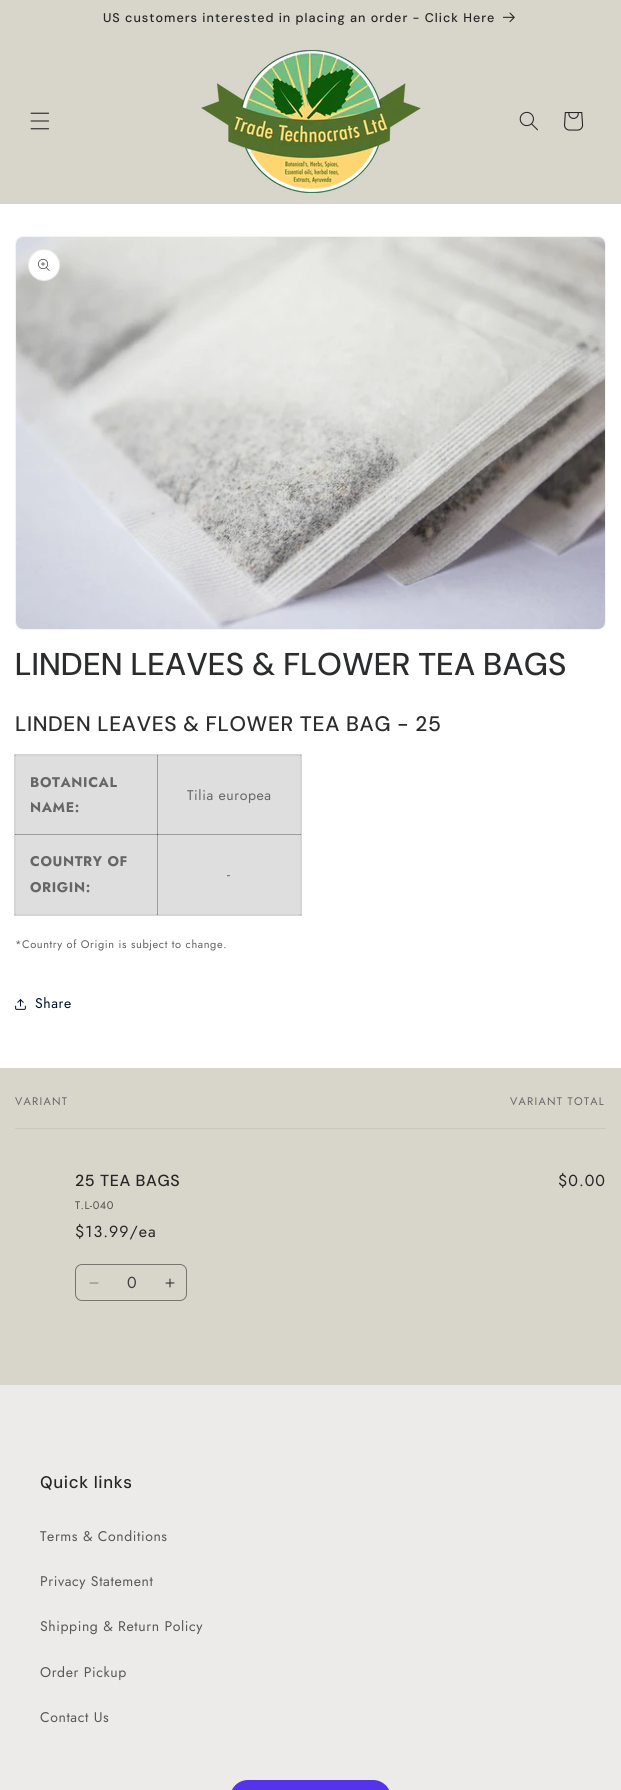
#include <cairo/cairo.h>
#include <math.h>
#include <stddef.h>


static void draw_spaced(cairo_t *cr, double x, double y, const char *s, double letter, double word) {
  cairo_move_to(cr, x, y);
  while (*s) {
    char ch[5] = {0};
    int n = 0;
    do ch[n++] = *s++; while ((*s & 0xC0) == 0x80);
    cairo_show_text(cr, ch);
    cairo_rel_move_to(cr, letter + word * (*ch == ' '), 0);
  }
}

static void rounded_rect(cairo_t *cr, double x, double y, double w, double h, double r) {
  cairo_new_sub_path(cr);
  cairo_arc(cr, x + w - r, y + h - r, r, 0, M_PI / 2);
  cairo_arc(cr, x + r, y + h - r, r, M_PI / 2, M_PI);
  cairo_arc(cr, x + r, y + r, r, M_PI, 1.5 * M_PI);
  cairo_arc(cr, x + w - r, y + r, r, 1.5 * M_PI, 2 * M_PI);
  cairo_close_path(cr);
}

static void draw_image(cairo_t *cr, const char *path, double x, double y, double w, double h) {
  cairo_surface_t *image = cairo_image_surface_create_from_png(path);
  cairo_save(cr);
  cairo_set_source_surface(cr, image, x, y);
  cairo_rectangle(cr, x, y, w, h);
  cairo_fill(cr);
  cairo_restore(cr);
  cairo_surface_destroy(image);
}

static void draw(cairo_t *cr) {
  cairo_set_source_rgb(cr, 237 / 255.0, 235 / 255.0, 233 / 255.0);
  cairo_paint(cr);
  cairo_set_source_rgb(cr, 216 / 255.0, 213 / 255.0, 203 / 255.0);
  cairo_rectangle(cr, 0, 0, 621, 204);
  cairo_fill(cr);
  draw_image(cr, "images/1.png", 30, 112, 20, 18);
  draw_image(cr, "images/2.png", 201, 50, 220, 143);
  draw_image(cr, "images/3.png", 519, 111, 19, 20);
  draw_image(cr, "images/4.png", 564, 112, 20, 19);
  draw_image(cr, "images/5.png", 503, 12, 12, 11);
  cairo_set_source_rgb(cr, 1, 1, 1);
  cairo_rectangle(cr, 0, 204, 621, 864);
  cairo_fill(cr);
  cairo_set_source_rgb(cr, 213 / 255.0, 213 / 255.0, 213 / 255.0);
  cairo_rectangle(cr, 15, 755, 1, 160);
  cairo_fill(cr);
  cairo_rectangle(cr, 15, 755, 143, 1);
  cairo_fill(cr);
  cairo_set_source_rgb(cr, 179 / 255.0, 179 / 255.0, 179 / 255.0);
  cairo_rectangle(cr, 15, 755, 1, 1);
  cairo_fill(cr);
  cairo_set_source_rgb(cr, 213 / 255.0, 213 / 255.0, 213 / 255.0);
  cairo_rectangle(cr, 300, 755, 1, 80);
  cairo_fill(cr);
  cairo_rectangle(cr, 15, 914, 286, 1);
  cairo_fill(cr);
  cairo_set_source_rgb(cr, 179 / 255.0, 179 / 255.0, 179 / 255.0);
  cairo_rectangle(cr, 15, 914, 1, 1);
  cairo_fill(cr);
  cairo_set_source_rgb(cr, 130 / 255.0, 130 / 255.0, 131 / 255.0);
  cairo_rectangle(cr, 15, 834, 1, 1);
  cairo_fill(cr);
  cairo_rectangle(cr, 157, 914, 1, 1);
  cairo_fill(cr);
  cairo_set_source_rgb(cr, 213 / 255.0, 213 / 255.0, 213 / 255.0);
  cairo_rectangle(cr, 300, 834, 1, 81);
  cairo_fill(cr);
  cairo_set_source_rgb(cr, 179 / 255.0, 179 / 255.0, 179 / 255.0);
  cairo_rectangle(cr, 300, 914, 1, 1);
  cairo_fill(cr);
  cairo_set_source_rgb(cr, 130 / 255.0, 130 / 255.0, 131 / 255.0);
  cairo_rectangle(cr, 300, 834, 1, 1);
  cairo_fill(cr);
  rounded_rect(cr, 15.5, 236.5, 590, 393, 7.5);
  cairo_set_source_rgb(cr, 244 / 255.0, 244 / 255.0, 245 / 255.0);
  cairo_set_line_width(cr, 1);
  cairo_stroke(cr);
  draw_image(cr, "images/6.png", 16, 237, 589, 392);
  cairo_set_source_rgb(cr, 1, 1, 1);
  cairo_arc(cr, 44, 265, 16, 0, 2 * M_PI);
  cairo_fill(cr);
  cairo_arc(cr, 44, 265, 15.5, 0, 2 * M_PI);
  cairo_set_source_rgba(cr, 43 / 255.0, 44 / 255.0, 45 / 255.0, 0.1);
  cairo_stroke(cr);
  draw_image(cr, "images/7.png", 38, 259, 12, 12);
  cairo_rectangle(cr, 14.5, 754.5, 287, 161);
  cairo_set_source_rgb(cr, 213 / 255.0, 213 / 255.0, 213 / 255.0);
  cairo_stroke(cr);
  cairo_set_source_rgb(cr, 222 / 255.0, 222 / 255.0, 222 / 255.0);
  cairo_rectangle(cr, 16, 756, 284, 78);
  cairo_fill(cr);
  cairo_set_source_rgb(cr, 157 / 255.0, 158 / 255.0, 159 / 255.0);
  cairo_rectangle(cr, 157, 756, 1, 79);
  cairo_fill(cr);
  cairo_rectangle(cr, 16, 834, 284, 1);
  cairo_fill(cr);
  cairo_set_source_rgb(cr, 73 / 255.0, 74 / 255.0, 75 / 255.0);
  cairo_rectangle(cr, 157, 834, 1, 1);
  cairo_fill(cr);
  cairo_set_source_rgb(cr, 213 / 255.0, 213 / 255.0, 213 / 255.0);
  cairo_rectangle(cr, 157, 755, 144, 1);
  cairo_fill(cr);
  cairo_set_source_rgb(cr, 130 / 255.0, 130 / 255.0, 131 / 255.0);
  cairo_rectangle(cr, 157, 755, 1, 1);
  cairo_fill(cr);
  cairo_set_source_rgb(cr, 179 / 255.0, 179 / 255.0, 179 / 255.0);
  cairo_rectangle(cr, 300, 755, 1, 1);
  cairo_fill(cr);
  cairo_set_source_rgb(cr, 222 / 255.0, 222 / 255.0, 222 / 255.0);
  cairo_rectangle(cr, 16, 835, 284, 79);
  cairo_fill(cr);
  cairo_set_source_rgb(cr, 157 / 255.0, 158 / 255.0, 159 / 255.0);
  cairo_rectangle(cr, 157, 835, 1, 79);
  cairo_fill(cr);
  draw_image(cr, "images/8.png", 15, 999, 11, 11);
  cairo_set_source_rgb(cr, 216 / 255.0, 213 / 255.0, 203 / 255.0);
  cairo_rectangle(cr, 0, 1068, 621, 317);
  cairo_fill(cr);
  cairo_set_source_rgb(cr, 202 / 255.0, 199 / 255.0, 190 / 255.0);
  cairo_rectangle(cr, 15, 1128, 591, 1);
  cairo_fill(cr);
  draw_image(cr, "images/9.png", 89, 1282, 10, 2);
  draw_image(cr, "images/10.png", 165, 1278, 10, 10);
  rounded_rect(cr, 75.5, 1264.5, 111, 36, 6.5);
  cairo_set_source_rgb(cr, 118 / 255.0, 117 / 255.0, 112 / 255.0);
  cairo_stroke(cr);
  cairo_set_source_rgb(cr, 84 / 255.0, 51 / 255.0, 235 / 255.0);
  rounded_rect(cr, 230, 1780, 161, 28, 18);
  cairo_fill(cr);
  cairo_select_font_face(cr, "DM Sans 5 Medium", CAIRO_FONT_SLANT_NORMAL, CAIRO_FONT_WEIGHT_NORMAL);
  cairo_set_font_size(cr, 12.6);
  cairo_set_source_rgb(cr, 38 / 255.0, 38 / 255.0, 38 / 255.0);
  draw_spaced(cr, 103, 22, "US customers interested in placing an order - Click Here", 1, 0);
  cairo_select_font_face(cr, "DM Sans Medium", CAIRO_FONT_SLANT_NORMAL, CAIRO_FONT_WEIGHT_NORMAL);
  cairo_set_font_size(cr, 31.5);
  cairo_set_source_rgb(cr, 43 / 255.0, 44 / 255.0, 45 / 255.0);
  draw_spaced(cr, 15, 675, "LINDEN LEAVES & FLOWER TEA BAGS", 0.65, 0);
  cairo_select_font_face(cr, "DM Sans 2 Medium", CAIRO_FONT_SLANT_NORMAL, CAIRO_FONT_WEIGHT_NORMAL);
  cairo_set_font_size(cr, 21);
  draw_spaced(cr, 15, 731, "LINDEN LEAVES & FLOWER TEA BAG - 25", 0.65, 0);
  cairo_select_font_face(cr, "Jost", CAIRO_FONT_SLANT_NORMAL, CAIRO_FONT_WEIGHT_BOLD);
  cairo_set_font_size(cr, 14);
  cairo_set_source_rgb(cr, 102 / 255.0, 102 / 255.0, 102 / 255.0);
  draw_spaced(cr, 30, 787, "BOTANICAL", 0.6, 0);
  draw_spaced(cr, 30, 812, "NAME:", 0.6, 0);
  cairo_select_font_face(cr, "Jost", CAIRO_FONT_SLANT_NORMAL, CAIRO_FONT_WEIGHT_NORMAL);
  draw_spaced(cr, 187, 800, "Tilia europea", 0.6, 0);
  cairo_select_font_face(cr, "Jost", CAIRO_FONT_SLANT_NORMAL, CAIRO_FONT_WEIGHT_BOLD);
  draw_spaced(cr, 30, 866, "COUNTRY OF", 0.6, 0);
  draw_spaced(cr, 30, 892, "ORIGIN:", 0.6, 0);
  cairo_select_font_face(cr, "Jost", CAIRO_FONT_SLANT_NORMAL, CAIRO_FONT_WEIGHT_NORMAL);
  draw_spaced(cr, 227, 879, "-", 0.6, 0);
  cairo_set_font_size(cr, 11);
  cairo_set_source_rgb(cr, 96 / 255.0, 97 / 255.0, 98 / 255.0);
  draw_spaced(cr, 15, 948, "*Country of Origin is subject to change.", 0.6, 0);
  cairo_set_font_size(cr, 14);
  cairo_set_source_rgb(cr, 0, 17 / 255.0, 40 / 255.0);
  draw_spaced(cr, 35, 1008, "Share", 0.6, 0);
  cairo_set_font_size(cr, 11);
  cairo_set_source_rgb(cr, 102 / 255.0, 102 / 255.0, 102 / 255.0);
  draw_spaced(cr, 15, 1105, "VARIANT", 1.25, 0);
  draw_spaced(cr, 510, 1105, "VARIANT TOTAL", 1.25, 0);
  cairo_select_font_face(cr, "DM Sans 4 Medium", CAIRO_FONT_SLANT_NORMAL, CAIRO_FONT_WEIGHT_NORMAL);
  cairo_set_font_size(cr, 16);
  cairo_set_source_rgb(cr, 38 / 255.0, 38 / 255.0, 38 / 255.0);
  draw_spaced(cr, 75, 1186, "25 TEA BAGS", 0.6, 0);
  cairo_select_font_face(cr, "Jost", CAIRO_FONT_SLANT_NORMAL, CAIRO_FONT_WEIGHT_NORMAL);
  cairo_set_font_size(cr, 11);
  cairo_set_source_rgb(cr, 83 / 255.0, 82 / 255.0, 79 / 255.0);
  draw_spaced(cr, 75, 1209, "T.L-040", 0.5, 0);
  cairo_set_font_size(cr, 16);
  cairo_set_source_rgb(cr, 38 / 255.0, 38 / 255.0, 38 / 255.0);
  draw_spaced(cr, 75, 1237, "$13.99/ea", 1, 0);
  draw_spaced(cr, 558, 1186, "$0.00", 1, 0);
  cairo_set_source_rgb(cr, 65 / 255.0, 64 / 255.0, 63 / 255.0);
  cairo_move_to(cr, 127, 1288);
  cairo_show_text(cr, "0");
  cairo_select_font_face(cr, "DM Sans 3 Medium", CAIRO_FONT_SLANT_NORMAL, CAIRO_FONT_WEIGHT_NORMAL);
  cairo_set_font_size(cr, 16.75);
  cairo_set_source_rgb(cr, 38 / 255.0, 38 / 255.0, 38 / 255.0);
  draw_spaced(cr, 40, 1488, "Quick links", 0.65, 0);
  cairo_select_font_face(cr, "Jost", CAIRO_FONT_SLANT_NORMAL, CAIRO_FONT_WEIGHT_NORMAL);
  cairo_set_font_size(cr, 14);
  cairo_set_source_rgb(cr, 88 / 255.0, 87 / 255.0, 87 / 255.0);
  draw_spaced(cr, 40, 1541, "Terms & Conditions", 0.6, 0);
  draw_spaced(cr, 40, 1586, "Privacy Statement", 0.6, 0);
  draw_spaced(cr, 40, 1631, "Shipping & Return Policy", 0.6, 0);
  draw_spaced(cr, 40, 1677, "Order Pickup", 0.6, 0);
  draw_spaced(cr, 40, 1722, "Contact Us", 0.6, 0);
}

int main(void) {
  cairo_surface_t *surface = cairo_image_surface_create(CAIRO_FORMAT_RGB24, 621, 1790);
  cairo_t *cr = cairo_create(surface);
  cairo_font_options_t *options = cairo_font_options_create();
  cairo_font_options_set_hint_metrics(options, CAIRO_HINT_METRICS_OFF);
  cairo_font_options_set_hint_style(options, CAIRO_HINT_STYLE_NONE);
  cairo_set_font_options(cr, options);
  cairo_set_miter_limit(cr, 4);
  draw(cr);
  cairo_surface_write_to_png(surface, "out.png");
  cairo_font_options_destroy(options);
  cairo_destroy(cr);
  cairo_surface_destroy(surface);
  return 0;
}
